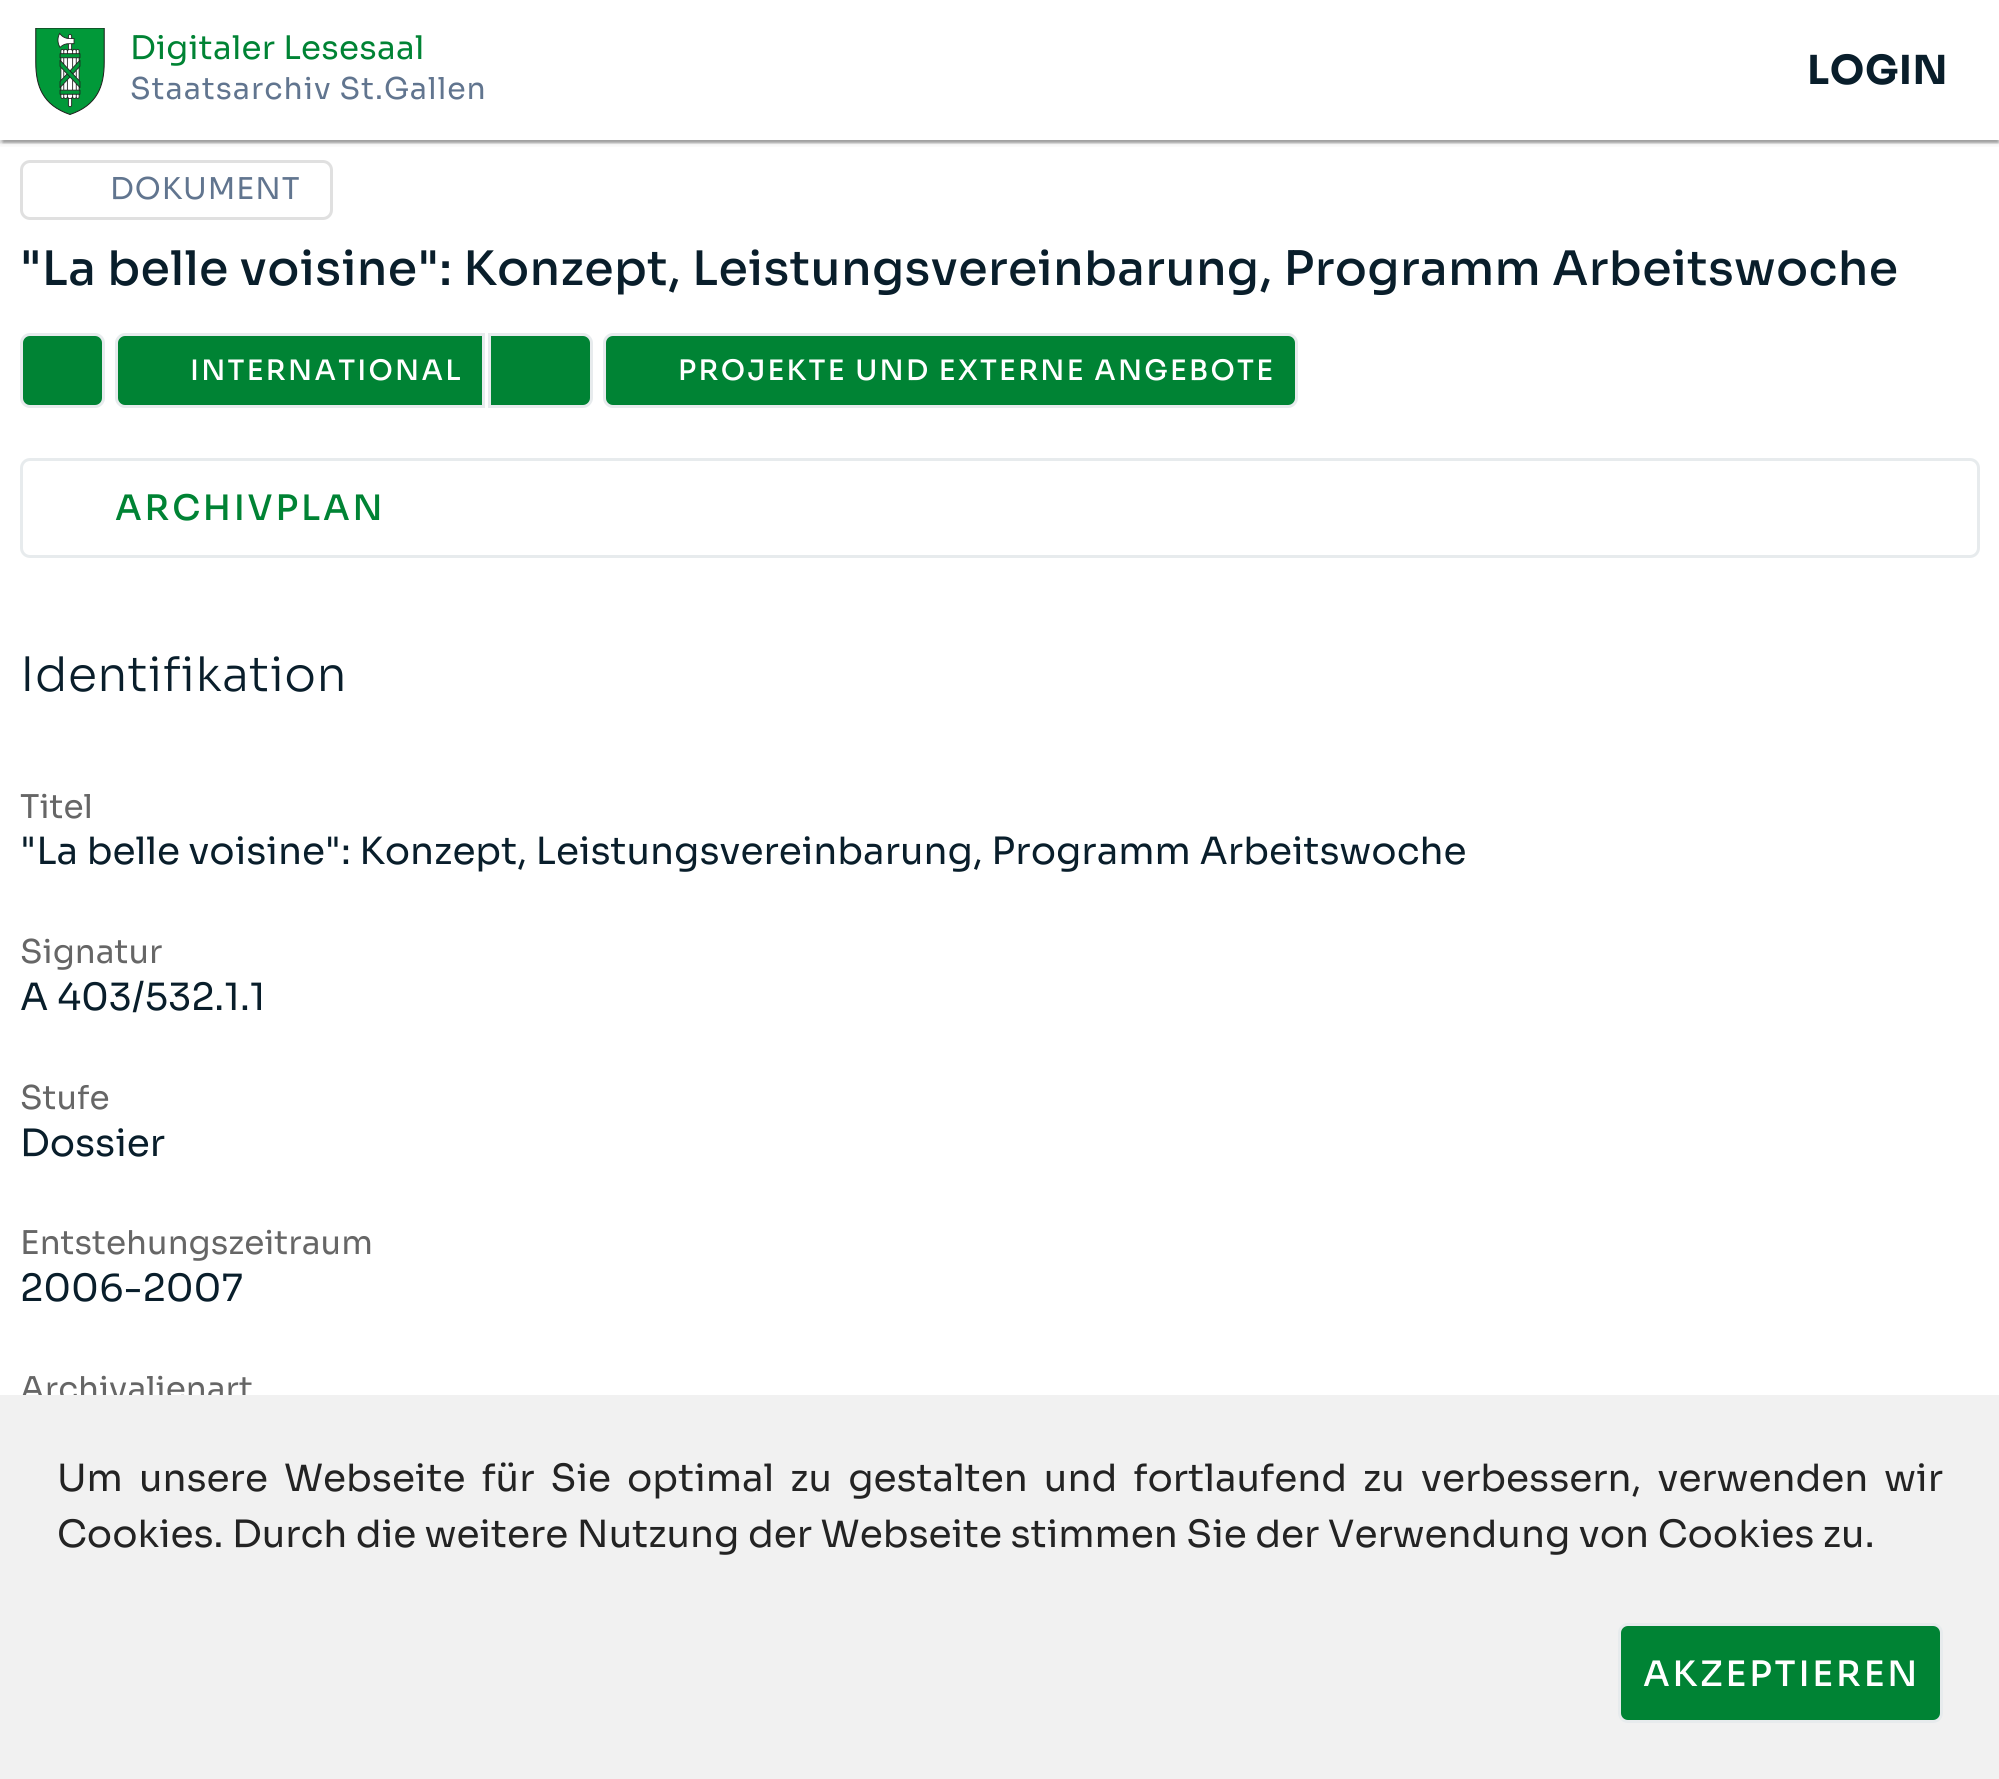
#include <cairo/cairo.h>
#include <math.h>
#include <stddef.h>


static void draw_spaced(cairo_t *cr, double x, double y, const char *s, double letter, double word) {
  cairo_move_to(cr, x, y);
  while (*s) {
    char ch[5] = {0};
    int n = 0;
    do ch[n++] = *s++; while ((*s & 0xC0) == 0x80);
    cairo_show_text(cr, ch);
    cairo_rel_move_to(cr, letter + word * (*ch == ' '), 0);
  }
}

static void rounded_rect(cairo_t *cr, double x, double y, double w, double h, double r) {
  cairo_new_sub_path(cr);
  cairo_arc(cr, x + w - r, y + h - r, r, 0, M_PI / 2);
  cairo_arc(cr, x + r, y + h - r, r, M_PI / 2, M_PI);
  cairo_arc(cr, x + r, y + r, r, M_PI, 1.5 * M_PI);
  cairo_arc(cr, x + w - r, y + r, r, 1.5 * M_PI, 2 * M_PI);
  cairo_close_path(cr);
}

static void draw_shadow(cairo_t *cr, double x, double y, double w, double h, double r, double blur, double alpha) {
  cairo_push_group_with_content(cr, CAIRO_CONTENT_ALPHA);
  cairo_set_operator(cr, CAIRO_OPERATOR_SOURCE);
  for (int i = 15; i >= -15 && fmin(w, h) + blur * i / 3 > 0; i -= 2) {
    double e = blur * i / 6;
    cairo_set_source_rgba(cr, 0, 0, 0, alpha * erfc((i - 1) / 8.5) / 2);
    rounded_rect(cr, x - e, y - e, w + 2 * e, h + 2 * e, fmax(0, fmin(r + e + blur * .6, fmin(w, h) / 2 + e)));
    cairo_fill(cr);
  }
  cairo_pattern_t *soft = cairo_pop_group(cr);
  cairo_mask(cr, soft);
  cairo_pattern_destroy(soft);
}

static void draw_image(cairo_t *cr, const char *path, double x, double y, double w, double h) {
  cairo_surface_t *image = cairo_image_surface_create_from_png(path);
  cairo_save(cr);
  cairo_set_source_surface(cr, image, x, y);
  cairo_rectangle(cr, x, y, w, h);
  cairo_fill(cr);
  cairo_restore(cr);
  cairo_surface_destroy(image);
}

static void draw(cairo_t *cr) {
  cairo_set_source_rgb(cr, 1, 1, 1);
  cairo_paint(cr);
  cairo_save(cr);
  cairo_rectangle(cr, 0, 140, 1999, 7);
  cairo_clip(cr);
  cairo_set_source_rgb(cr, 0, 0, 0);
  draw_shadow(cr, 0, 3, 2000, 140, 0, 4, 0.12);
  cairo_restore(cr);
  cairo_save(cr);
  cairo_rectangle(cr, 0, 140, 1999, 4);
  cairo_clip(cr);
  cairo_set_source_rgb(cr, 0, 0, 0);
  draw_shadow(cr, 0, 3, 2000, 140, 0, 1, 0.14);
  cairo_restore(cr);
  cairo_save(cr);
  cairo_rectangle(cr, 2, 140, 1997, 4);
  cairo_clip(cr);
  cairo_set_source_rgb(cr, 0, 0, 0);
  draw_shadow(cr, 3, 8, 1995, 135, 0, 1, 0.2);
  cairo_restore(cr);
  draw_image(cr, "images/1.png", 35, 28, 70, 87);
  rounded_rect(cr, 21.5, 161.5, 310, 57, 8.5);
  cairo_set_source_rgb(cr, 224 / 255.0, 224 / 255.0, 224 / 255.0);
  cairo_set_line_width(cr, 3);
  cairo_stroke(cr);
  cairo_set_source_rgb(cr, 0, 131 / 255.0, 52 / 255.0);
  rounded_rect(cr, 21.5, 334.5, 82, 72, 8.5);
  cairo_fill_preserve(cr);
  cairo_set_source_rgb(cr, 231 / 255.0, 235 / 255.0, 237 / 255.0);
  cairo_stroke(cr);
  cairo_set_source_rgb(cr, 0, 131 / 255.0, 52 / 255.0);
  cairo_new_path(cr);
  cairo_move_to(cr, 125, 334.5);
  cairo_line_to(cr, 483.5, 334.5);
  cairo_line_to(cr, 483.5, 406.5);
  cairo_line_to(cr, 125, 406.5);
  cairo_curve_to(cr, 120.5, 406.5, 116.5, 402.5, 116.5, 398);
  cairo_line_to(cr, 116.5, 343);
  cairo_curve_to(cr, 116.5, 338.5, 120.5, 334.5, 125, 334.5);
  cairo_close_path(cr);
  cairo_fill_preserve(cr);
  cairo_set_source_rgb(cr, 231 / 255.0, 235 / 255.0, 237 / 255.0);
  cairo_stroke(cr);
  cairo_set_source_rgb(cr, 0, 131 / 255.0, 52 / 255.0);
  cairo_new_path(cr);
  cairo_move_to(cr, 489.5, 334.5);
  cairo_line_to(cr, 583, 334.5);
  cairo_curve_to(cr, 587.5, 334.5, 591.5, 338.5, 591.5, 343);
  cairo_line_to(cr, 591.5, 398);
  cairo_curve_to(cr, 591.5, 402.5, 587.5, 406.5, 583, 406.5);
  cairo_line_to(cr, 489.5, 406.5);
  cairo_close_path(cr);
  cairo_fill_preserve(cr);
  cairo_set_source_rgb(cr, 231 / 255.0, 235 / 255.0, 237 / 255.0);
  cairo_stroke(cr);
  cairo_set_source_rgb(cr, 0, 131 / 255.0, 52 / 255.0);
  rounded_rect(cr, 604.5, 334.5, 692, 72, 8.5);
  cairo_fill_preserve(cr);
  cairo_set_source_rgb(cr, 231 / 255.0, 235 / 255.0, 237 / 255.0);
  cairo_stroke(cr);
  rounded_rect(cr, 21.5, 459.5, 1957, 97, 8.5);
  cairo_stroke(cr);
  cairo_select_font_face(cr, "Sora", CAIRO_FONT_SLANT_NORMAL, CAIRO_FONT_WEIGHT_NORMAL);
  cairo_set_font_size(cr, 32.5);
  cairo_set_source_rgb(cr, 0, 131 / 255.0, 52 / 255.0);
  draw_spaced(cr, 130, 59, "Digitaler Lesesaal", 0.3, 0);
  cairo_set_font_size(cr, 30);
  cairo_set_source_rgb(cr, 97 / 255.0, 117 / 255.0, 143 / 255.0);
  draw_spaced(cr, 130, 99, "Staatsarchiv St.Gallen", 1, 0);
  cairo_select_font_face(cr, "Sora", CAIRO_FONT_SLANT_NORMAL, CAIRO_FONT_WEIGHT_BOLD);
  cairo_set_font_size(cr, 40);
  cairo_set_source_rgb(cr, 9 / 255.0, 30 / 255.0, 43 / 255.0);
  draw_spaced(cr, 1807, 84, "LOGIN", 0.5, 0);
  cairo_select_font_face(cr, "Sora", CAIRO_FONT_SLANT_NORMAL, CAIRO_FONT_WEIGHT_NORMAL);
  cairo_set_font_size(cr, 30);
  cairo_set_source_rgb(cr, 97 / 255.0, 117 / 255.0, 143 / 255.0);
  draw_spaced(cr, 110, 199, "DOKUMENT", 1, 0);
  cairo_select_font_face(cr, "Sora Medium", CAIRO_FONT_SLANT_NORMAL, CAIRO_FONT_WEIGHT_NORMAL);
  cairo_set_font_size(cr, 47.5);
  cairo_set_source_rgb(cr, 9 / 255.0, 30 / 255.0, 43 / 255.0);
  draw_spaced(cr, 20, 285, "\"La belle voisine\": Konzept, Leistungsvereinbarung, Programm Arbeitswoche", 0.38, 0);
  cairo_set_font_size(cr, 28.1);
  cairo_set_source_rgb(cr, 1, 1, 1);
  draw_spaced(cr, 190, 380, "INTERNATIONAL", 2.25, 0);
  draw_spaced(cr, 678, 380, "PROJEKTE UND EXTERNE ANGEBOTE", 2.25, 0);
  cairo_set_font_size(cr, 35);
  cairo_set_source_rgb(cr, 0, 131 / 255.0, 52 / 255.0);
  draw_spaced(cr, 115, 520, "ARCHIVPLAN", 2.75, 0);
  cairo_select_font_face(cr, "Sora Light", CAIRO_FONT_SLANT_NORMAL, CAIRO_FONT_WEIGHT_NORMAL);
  cairo_set_font_size(cr, 47.5);
  cairo_set_source_rgb(cr, 9 / 255.0, 30 / 255.0, 43 / 255.0);
  draw_spaced(cr, 20, 691, "Identifikation", 0.38, 0);
  cairo_select_font_face(cr, "Sora", CAIRO_FONT_SLANT_NORMAL, CAIRO_FONT_WEIGHT_NORMAL);
  cairo_set_font_size(cr, 32.75);
  cairo_set_source_rgb(cr, 102 / 255.0, 102 / 255.0, 102 / 255.0);
  cairo_move_to(cr, 20, 818);
  cairo_show_text(cr, "Titel");
  cairo_set_font_size(cr, 37.5);
  cairo_set_source_rgb(cr, 9 / 255.0, 30 / 255.0, 43 / 255.0);
  cairo_move_to(cr, 20, 864);
  cairo_show_text(cr, "\"La belle voisine\": Konzept, Leistungsvereinbarung, Programm Arbeitswoche");
  cairo_set_font_size(cr, 32.75);
  cairo_set_source_rgb(cr, 102 / 255.0, 102 / 255.0, 102 / 255.0);
  cairo_move_to(cr, 20, 963);
  cairo_show_text(cr, "Signatur");
  cairo_set_font_size(cr, 37.5);
  cairo_set_source_rgb(cr, 9 / 255.0, 30 / 255.0, 43 / 255.0);
  cairo_move_to(cr, 20, 1010);
  cairo_show_text(cr, "A 403/532.1.1");
  cairo_set_font_size(cr, 32.75);
  cairo_set_source_rgb(cr, 102 / 255.0, 102 / 255.0, 102 / 255.0);
  cairo_move_to(cr, 20, 1109);
  cairo_show_text(cr, "Stufe");
  cairo_set_font_size(cr, 37.5);
  cairo_set_source_rgb(cr, 9 / 255.0, 30 / 255.0, 43 / 255.0);
  cairo_move_to(cr, 20, 1156);
  cairo_show_text(cr, "Dossier");
  cairo_set_font_size(cr, 32.75);
  cairo_set_source_rgb(cr, 102 / 255.0, 102 / 255.0, 102 / 255.0);
  cairo_move_to(cr, 20, 1254);
  cairo_show_text(cr, "Entstehungszeitraum");
  cairo_set_font_size(cr, 37.5);
  cairo_set_source_rgb(cr, 9 / 255.0, 30 / 255.0, 43 / 255.0);
  cairo_move_to(cr, 20, 1301);
  cairo_show_text(cr, "2006-2007");
  cairo_set_font_size(cr, 32.75);
  cairo_set_source_rgb(cr, 102 / 255.0, 102 / 255.0, 102 / 255.0);
  cairo_move_to(cr, 20, 1400);
  cairo_show_text(cr, "Archivalienart");
  cairo_set_source_rgb(cr, 241 / 255.0, 241 / 255.0, 241 / 255.0);
  cairo_rectangle(cr, 0, 1395, 1999, 384);
  cairo_fill(cr);
  cairo_set_font_size(cr, 37.5);
  cairo_set_source_rgb(cr, 35 / 255.0, 35 / 255.0, 35 / 255.0);
  draw_spaced(cr, 57, 1491, "Um unsere Webseite für Sie optimal zu gestalten und fortlaufend zu verbessern, verwenden wir", 0, 7.5);
  cairo_move_to(cr, 57, 1547);
  cairo_show_text(cr, "Cookies. Durch die weitere Nutzung der Webseite stimmen Sie der Verwendung von Cookies zu.");
  cairo_set_source_rgb(cr, 0, 131 / 255.0, 52 / 255.0);
  rounded_rect(cr, 1619.5, 1624.5, 322, 97, 8.5);
  cairo_fill_preserve(cr);
  cairo_set_source_rgb(cr, 231 / 255.0, 235 / 255.0, 237 / 255.0);
  cairo_stroke(cr);
  cairo_select_font_face(cr, "Sora Medium", CAIRO_FONT_SLANT_NORMAL, CAIRO_FONT_WEIGHT_NORMAL);
  cairo_set_font_size(cr, 35);
  cairo_set_source_rgb(cr, 1, 1, 1);
  draw_spaced(cr, 1643, 1686, "AKZEPTIEREN", 2.75, 0);
}

int main(void) {
  cairo_surface_t *surface = cairo_image_surface_create(CAIRO_FORMAT_RGB24, 1999, 1779);
  cairo_t *cr = cairo_create(surface);
  cairo_font_options_t *options = cairo_font_options_create();
  cairo_font_options_set_hint_metrics(options, CAIRO_HINT_METRICS_OFF);
  cairo_font_options_set_hint_style(options, CAIRO_HINT_STYLE_NONE);
  cairo_set_font_options(cr, options);
  cairo_set_miter_limit(cr, 4);
  draw(cr);
  cairo_surface_write_to_png(surface, "out.png");
  cairo_font_options_destroy(options);
  cairo_destroy(cr);
  cairo_surface_destroy(surface);
  return 0;
}
